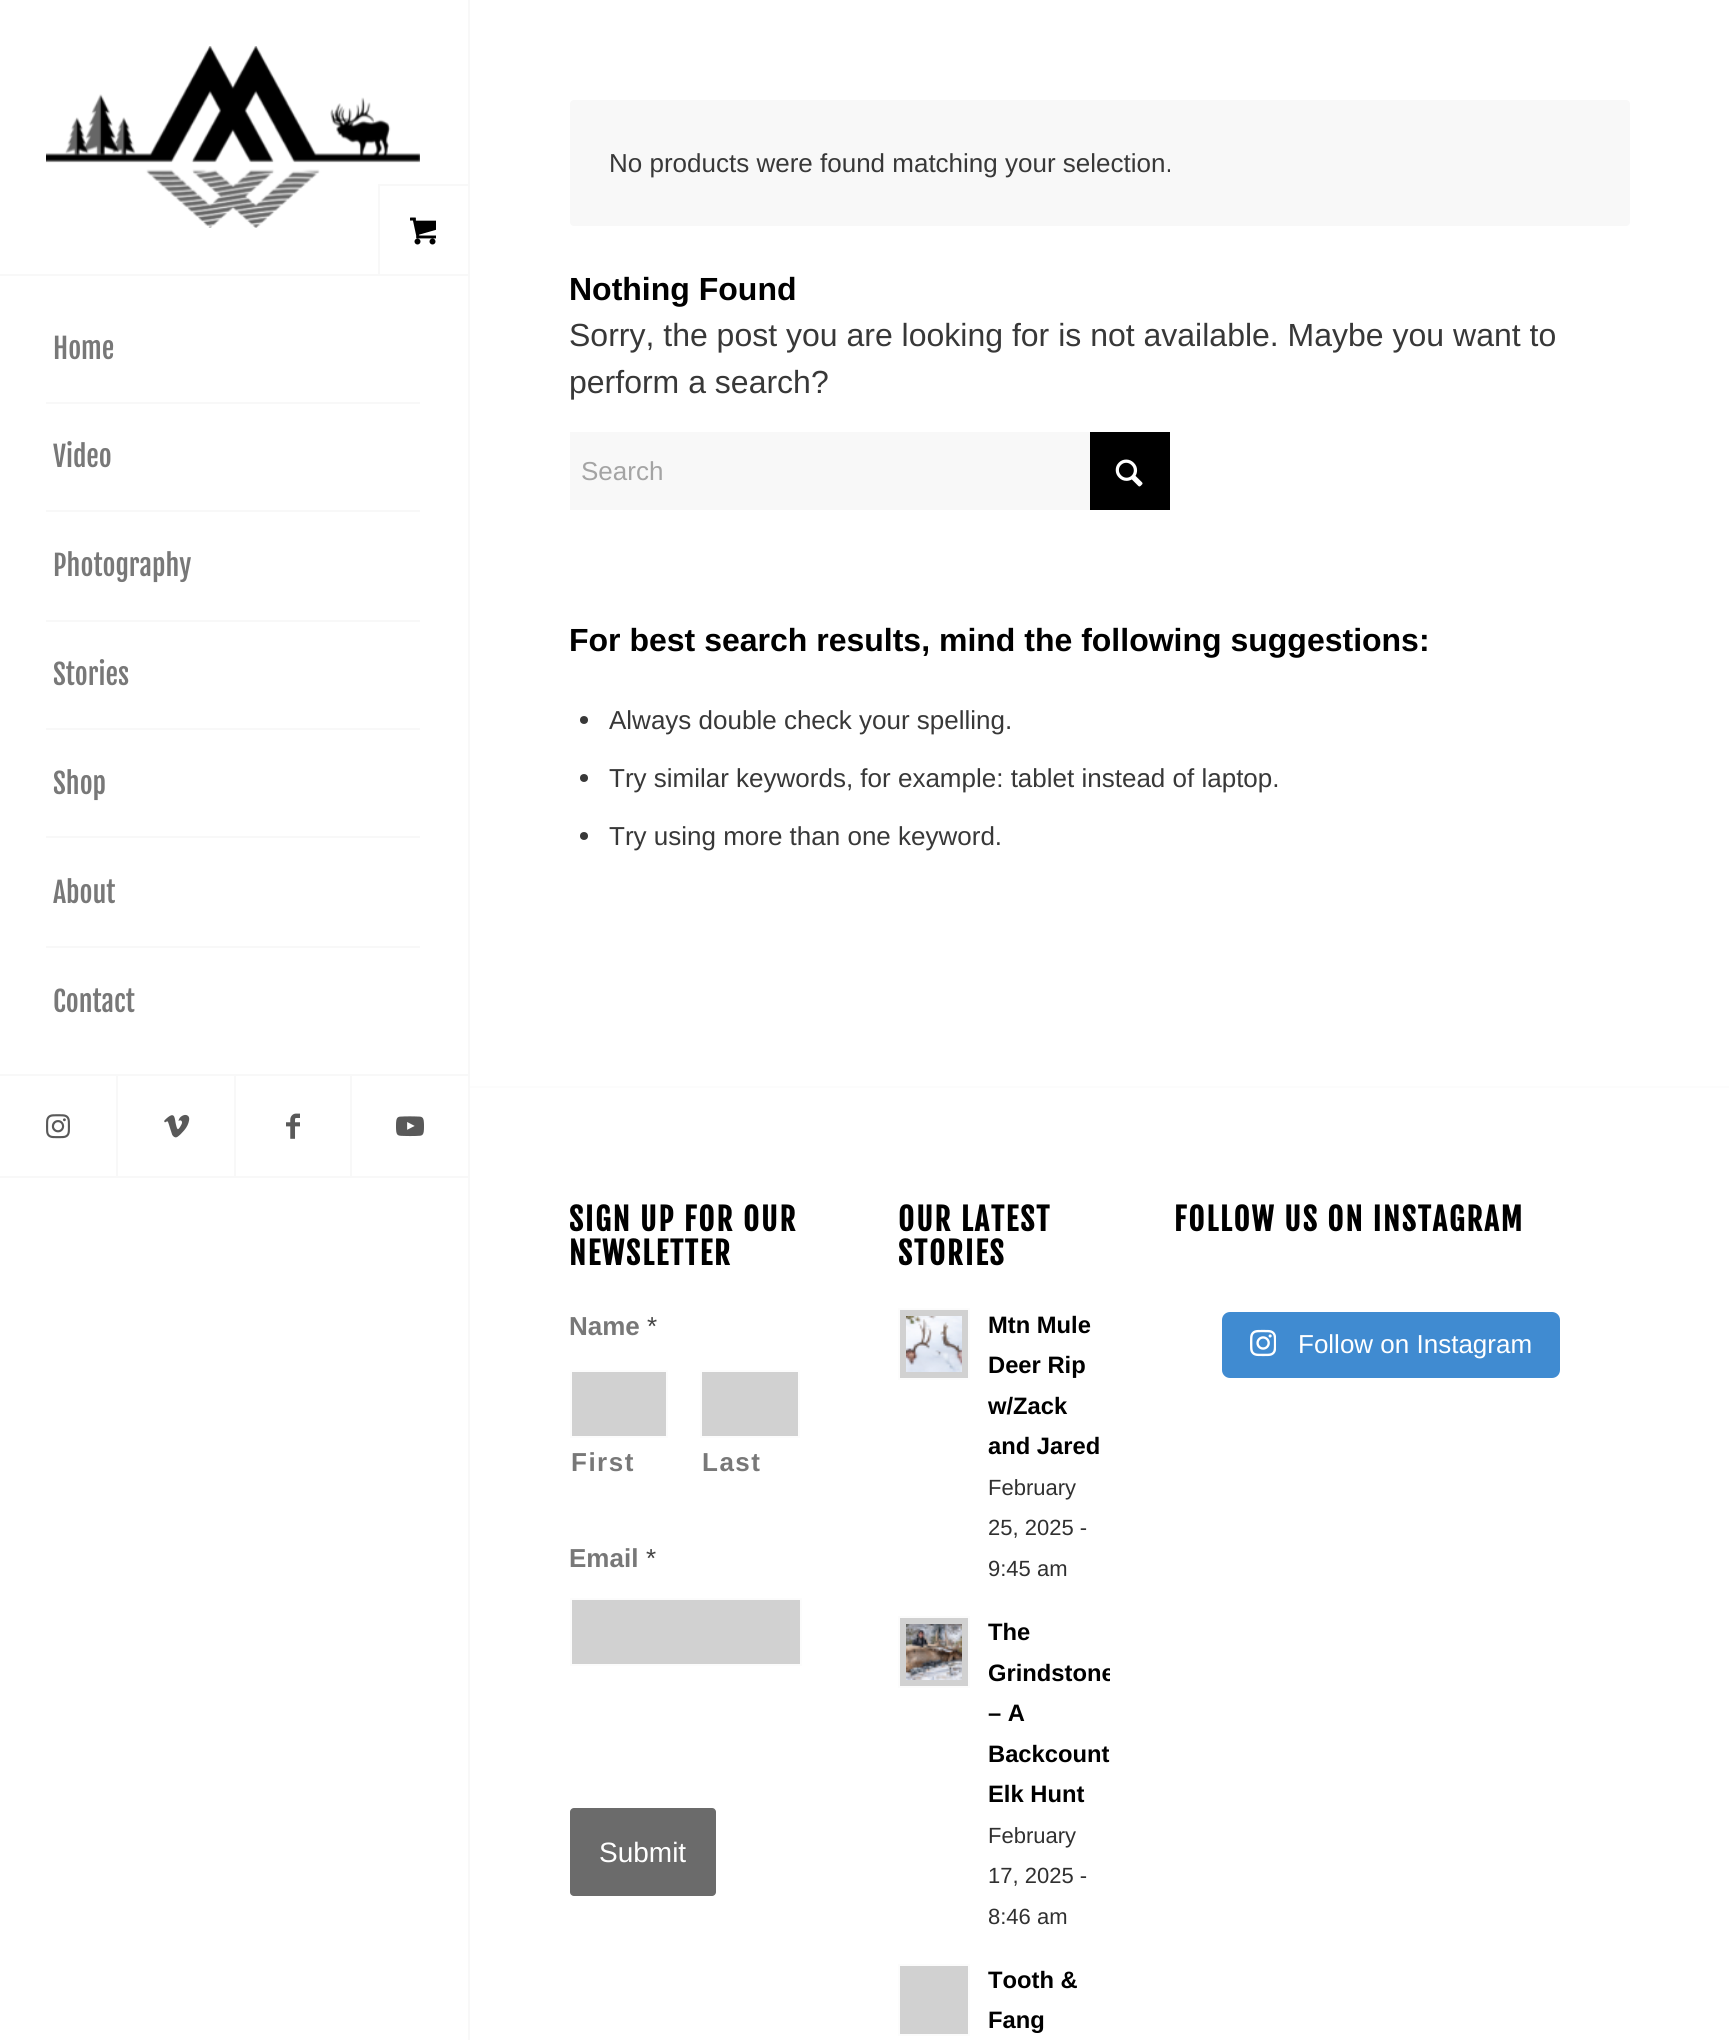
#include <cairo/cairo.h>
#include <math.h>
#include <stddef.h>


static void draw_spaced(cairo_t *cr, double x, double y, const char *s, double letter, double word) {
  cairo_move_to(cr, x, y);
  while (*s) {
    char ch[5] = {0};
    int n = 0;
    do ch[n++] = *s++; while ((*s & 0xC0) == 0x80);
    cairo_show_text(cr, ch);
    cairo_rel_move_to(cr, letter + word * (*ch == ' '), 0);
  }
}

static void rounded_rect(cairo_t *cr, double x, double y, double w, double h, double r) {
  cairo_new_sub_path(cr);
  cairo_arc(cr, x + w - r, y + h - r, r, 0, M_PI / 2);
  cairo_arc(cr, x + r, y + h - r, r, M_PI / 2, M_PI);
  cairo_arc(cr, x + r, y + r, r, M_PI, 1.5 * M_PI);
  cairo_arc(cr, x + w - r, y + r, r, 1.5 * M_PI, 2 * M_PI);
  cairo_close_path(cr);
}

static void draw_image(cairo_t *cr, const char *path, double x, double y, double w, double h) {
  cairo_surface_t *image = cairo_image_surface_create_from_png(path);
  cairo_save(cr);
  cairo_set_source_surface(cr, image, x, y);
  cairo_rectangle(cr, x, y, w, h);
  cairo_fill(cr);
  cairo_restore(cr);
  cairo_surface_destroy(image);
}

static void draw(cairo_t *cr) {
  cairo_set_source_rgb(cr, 1, 1, 1);
  cairo_paint(cr);
  cairo_set_source_rgb(cr, 248 / 255.0, 248 / 255.0, 248 / 255.0);
  cairo_rectangle(cr, 0, 1176, 468, 2);
  cairo_fill(cr);
  cairo_rectangle(cr, 0, 274, 378, 2);
  cairo_fill(cr);
  draw_image(cr, "images/1.png", 46, 46, 374, 182);
  cairo_rectangle(cr, 468, 0, 2, 2040);
  cairo_fill(cr);
  cairo_rectangle(cr, 379, 185, 90, 90);
  cairo_stroke(cr);
  draw_image(cr, "images/2.png", 410, 217, 26, 28);
  cairo_rectangle(cr, 46, 402, 374, 2);
  cairo_fill(cr);
  cairo_rectangle(cr, 46, 510, 374, 2);
  cairo_fill(cr);
  cairo_rectangle(cr, 46, 620, 374, 2);
  cairo_fill(cr);
  cairo_rectangle(cr, 46, 728, 374, 2);
  cairo_fill(cr);
  cairo_rectangle(cr, 46, 836, 374, 2);
  cairo_fill(cr);
  cairo_rectangle(cr, 46, 946, 374, 2);
  cairo_fill(cr);
  cairo_rectangle(cr, 0, 1074, 468, 2);
  cairo_fill(cr);
  draw_image(cr, "images/3.png", 46, 1114, 24, 25);
  cairo_rectangle(cr, 116, 1076, 2, 100);
  cairo_fill(cr);
  draw_image(cr, "images/4.png", 164, 1114, 26, 24);
  cairo_rectangle(cr, 234, 1076, 2, 100);
  cairo_fill(cr);
  draw_image(cr, "images/5.png", 286, 1113, 14, 26);
  cairo_rectangle(cr, 350, 1076, 2, 100);
  cairo_fill(cr);
  draw_image(cr, "images/6.png", 396, 1116, 28, 21);
  rounded_rect(cr, 570, 100, 1060, 126, 4);
  cairo_fill(cr);
  cairo_set_source_rgb(cr, 0, 0, 0);
  cairo_rectangle(cr, 1090, 432, 80, 78);
  cairo_fill(cr);
  cairo_set_source_rgb(cr, 248 / 255.0, 248 / 255.0, 248 / 255.0);
  cairo_rectangle(cr, 570, 432, 520, 78);
  cairo_fill(cr);
  draw_image(cr, "images/7.png", 1115, 459, 28, 28);
  cairo_set_source_rgb(cr, 56 / 255.0, 56 / 255.0, 56 / 255.0);
  cairo_arc(cr, 584, 720, 4, 0, 2 * M_PI);
  cairo_fill(cr);
  cairo_arc(cr, 584, 778, 4, 0, 2 * M_PI);
  cairo_fill(cr);
  cairo_arc(cr, 584, 836, 4, 0, 2 * M_PI);
  cairo_fill(cr);
  cairo_set_source_rgb(cr, 252 / 255.0, 252 / 255.0, 252 / 255.0);
  cairo_rectangle(cr, 470, 1086, 1259, 2);
  cairo_fill(cr);
  cairo_set_source_rgb(cr, 209 / 255.0, 209 / 255.0, 209 / 255.0);
  cairo_rectangle(cr, 571, 1371, 96, 66);
  cairo_fill_preserve(cr);
  cairo_set_source_rgb(cr, 252 / 255.0, 252 / 255.0, 252 / 255.0);
  cairo_stroke(cr);
  cairo_set_source_rgb(cr, 209 / 255.0, 209 / 255.0, 209 / 255.0);
  cairo_rectangle(cr, 701, 1371, 98, 66);
  cairo_fill_preserve(cr);
  cairo_set_source_rgb(cr, 252 / 255.0, 252 / 255.0, 252 / 255.0);
  cairo_stroke(cr);
  cairo_set_source_rgb(cr, 209 / 255.0, 209 / 255.0, 209 / 255.0);
  cairo_rectangle(cr, 571, 1599, 230, 66);
  cairo_fill_preserve(cr);
  cairo_set_source_rgb(cr, 252 / 255.0, 252 / 255.0, 252 / 255.0);
  cairo_stroke(cr);
  cairo_set_source_rgb(cr, 107 / 255.0, 107 / 255.0, 107 / 255.0);
  rounded_rect(cr, 570, 1808, 146, 88, 4);
  cairo_fill(cr);
  cairo_set_source_rgb(cr, 209 / 255.0, 209 / 255.0, 209 / 255.0);
  cairo_rectangle(cr, 899, 1309, 70, 70);
  cairo_fill_preserve(cr);
  cairo_set_source_rgb(cr, 252 / 255.0, 252 / 255.0, 252 / 255.0);
  cairo_stroke(cr);
  draw_image(cr, "images/8.png", 906, 1316, 56, 56);
  cairo_set_source_rgb(cr, 209 / 255.0, 209 / 255.0, 209 / 255.0);
  cairo_rectangle(cr, 899, 1617, 70, 70);
  cairo_fill_preserve(cr);
  cairo_set_source_rgb(cr, 252 / 255.0, 252 / 255.0, 252 / 255.0);
  cairo_stroke(cr);
  draw_image(cr, "images/9.png", 906, 1624, 56, 56);
  cairo_set_source_rgb(cr, 209 / 255.0, 209 / 255.0, 209 / 255.0);
  cairo_rectangle(cr, 899, 1965, 70, 70);
  cairo_fill_preserve(cr);
  cairo_set_source_rgb(cr, 252 / 255.0, 252 / 255.0, 252 / 255.0);
  cairo_stroke(cr);
  cairo_set_source_rgb(cr, 64 / 255.0, 139 / 255.0, 209 / 255.0);
  rounded_rect(cr, 1222, 1312, 338, 66, 8);
  cairo_fill(cr);
  draw_image(cr, "images/10.png", 1250, 1329, 26, 28);
  cairo_select_font_face(cr, "Fjalla One", CAIRO_FONT_SLANT_NORMAL, CAIRO_FONT_WEIGHT_NORMAL);
  cairo_set_font_size(cr, 28);
  cairo_set_source_rgb(cr, 120 / 255.0, 120 / 255.0, 120 / 255.0);
  cairo_move_to(cr, 53, 359);
  cairo_show_text(cr, "Home");
  cairo_move_to(cr, 53, 467);
  cairo_show_text(cr, "Video");
  cairo_move_to(cr, 53, 576);
  cairo_show_text(cr, "Photography");
  cairo_move_to(cr, 53, 685);
  cairo_show_text(cr, "Stories");
  cairo_move_to(cr, 53, 794);
  cairo_show_text(cr, "Shop");
  cairo_move_to(cr, 53, 903);
  cairo_show_text(cr, "About");
  cairo_move_to(cr, 53, 1012);
  cairo_show_text(cr, "Contact");
  cairo_select_font_face(cr, "Liberation Sans", CAIRO_FONT_SLANT_NORMAL, CAIRO_FONT_WEIGHT_NORMAL);
  cairo_set_font_size(cr, 26);
  cairo_set_source_rgb(cr, 56 / 255.0, 56 / 255.0, 56 / 255.0);
  cairo_move_to(cr, 609, 172);
  cairo_show_text(cr, "No products were found matching your selection.");
  cairo_select_font_face(cr, "Liberation Sans", CAIRO_FONT_SLANT_NORMAL, CAIRO_FONT_WEIGHT_BOLD);
  cairo_set_font_size(cr, 32);
  cairo_set_source_rgb(cr, 0, 0, 0);
  cairo_move_to(cr, 569, 300);
  cairo_show_text(cr, "Nothing Found");
  cairo_select_font_face(cr, "Liberation Sans", CAIRO_FONT_SLANT_NORMAL, CAIRO_FONT_WEIGHT_NORMAL);
  cairo_set_source_rgb(cr, 56 / 255.0, 56 / 255.0, 56 / 255.0);
  cairo_move_to(cr, 569, 346);
  cairo_show_text(cr, "Sorry, the post you are looking for is not available. Maybe you want to");
  cairo_move_to(cr, 569, 393);
  cairo_show_text(cr, "perform a search?");
  cairo_set_font_size(cr, 26);
  cairo_set_source_rgb(cr, 164 / 255.0, 164 / 255.0, 164 / 255.0);
  cairo_move_to(cr, 581, 480);
  cairo_show_text(cr, "Search");
  cairo_select_font_face(cr, "Liberation Sans", CAIRO_FONT_SLANT_NORMAL, CAIRO_FONT_WEIGHT_BOLD);
  cairo_set_font_size(cr, 32);
  cairo_set_source_rgb(cr, 0, 0, 0);
  cairo_move_to(cr, 569, 651);
  cairo_show_text(cr, "For best search results, mind the following suggestions:");
  cairo_select_font_face(cr, "Liberation Sans", CAIRO_FONT_SLANT_NORMAL, CAIRO_FONT_WEIGHT_NORMAL);
  cairo_set_font_size(cr, 26);
  cairo_set_source_rgb(cr, 56 / 255.0, 56 / 255.0, 56 / 255.0);
  cairo_move_to(cr, 609, 729);
  cairo_show_text(cr, "Always double check your spelling.");
  cairo_move_to(cr, 609, 787);
  cairo_show_text(cr, "Try similar keywords, for example: tablet instead of laptop.");
  cairo_move_to(cr, 609, 845);
  cairo_show_text(cr, "Try using more than one keyword.");
  cairo_select_font_face(cr, "Fjalla One", CAIRO_FONT_SLANT_NORMAL, CAIRO_FONT_WEIGHT_BOLD);
  cairo_set_font_size(cr, 30.75);
  cairo_set_source_rgb(cr, 0, 0, 0);
  draw_spaced(cr, 569, 1231, "SIGN UP FOR OUR", 2, 0);
  draw_spaced(cr, 569, 1265, "NEWSLETTER", 2, 0);
  cairo_select_font_face(cr, "Liberation Sans", CAIRO_FONT_SLANT_NORMAL, CAIRO_FONT_WEIGHT_BOLD);
  cairo_set_font_size(cr, 26);
  cairo_set_source_rgb(cr, 120 / 255.0, 120 / 255.0, 120 / 255.0);
  cairo_move_to(cr, 569, 1335);
  cairo_show_text(cr, "Name");
  cairo_select_font_face(cr, "Liberation Sans", CAIRO_FONT_SLANT_NORMAL, CAIRO_FONT_WEIGHT_NORMAL);
  cairo_set_source_rgb(cr, 68 / 255.0, 68 / 255.0, 68 / 255.0);
  cairo_move_to(cr, 647, 1335);
  cairo_show_text(cr, "*");
  cairo_select_font_face(cr, "Liberation Sans", CAIRO_FONT_SLANT_NORMAL, CAIRO_FONT_WEIGHT_BOLD);
  cairo_set_source_rgb(cr, 120 / 255.0, 120 / 255.0, 120 / 255.0);
  draw_spaced(cr, 571, 1471, "First", 1.5, 0);
  draw_spaced(cr, 702, 1471, "Last", 1.5, 0);
  cairo_move_to(cr, 569, 1567);
  cairo_show_text(cr, "Email");
  cairo_select_font_face(cr, "Liberation Sans", CAIRO_FONT_SLANT_NORMAL, CAIRO_FONT_WEIGHT_NORMAL);
  cairo_set_source_rgb(cr, 68 / 255.0, 68 / 255.0, 68 / 255.0);
  cairo_move_to(cr, 646, 1567);
  cairo_show_text(cr, "*");
  cairo_set_font_size(cr, 28);
  cairo_set_source_rgb(cr, 1, 1, 1);
  cairo_move_to(cr, 599, 1862);
  cairo_show_text(cr, "Submit");
  cairo_select_font_face(cr, "Fjalla One", CAIRO_FONT_SLANT_NORMAL, CAIRO_FONT_WEIGHT_BOLD);
  cairo_set_font_size(cr, 30.75);
  cairo_set_source_rgb(cr, 0, 0, 0);
  draw_spaced(cr, 898, 1231, "OUR LATEST", 2, 0);
  draw_spaced(cr, 898, 1265, "STORIES", 2, 0);
  cairo_select_font_face(cr, "Liberation Sans", CAIRO_FONT_SLANT_NORMAL, CAIRO_FONT_WEIGHT_BOLD);
  cairo_set_font_size(cr, 23.75);
  cairo_move_to(cr, 988, 1333);
  cairo_show_text(cr, "Mtn Mule");
  cairo_move_to(cr, 988, 1373);
  cairo_show_text(cr, "Deer Rip");
  cairo_move_to(cr, 988, 1414);
  cairo_show_text(cr, "w/Zack");
  cairo_move_to(cr, 988, 1454);
  cairo_show_text(cr, "and Jared");
  cairo_select_font_face(cr, "Liberation Sans", CAIRO_FONT_SLANT_NORMAL, CAIRO_FONT_WEIGHT_NORMAL);
  cairo_set_font_size(cr, 22);
  cairo_set_source_rgb(cr, 48 / 255.0, 48 / 255.0, 48 / 255.0);
  cairo_move_to(cr, 988, 1495);
  cairo_show_text(cr, "February");
  cairo_move_to(cr, 988, 1535);
  cairo_show_text(cr, "25, 2025 -");
  cairo_move_to(cr, 988, 1576);
  cairo_show_text(cr, "9:45 am");
  cairo_select_font_face(cr, "Liberation Sans", CAIRO_FONT_SLANT_NORMAL, CAIRO_FONT_WEIGHT_BOLD);
  cairo_set_font_size(cr, 23.75);
  cairo_set_source_rgb(cr, 0, 0, 0);
  cairo_move_to(cr, 988, 1640);
  cairo_show_text(cr, "The");
  cairo_save(cr);
  cairo_rectangle(cr, 988, 1612, 122, 324);
  cairo_clip(cr);
  cairo_move_to(cr, 988, 1681);
  cairo_show_text(cr, "Grindstone");
  cairo_restore(cr);
  cairo_move_to(cr, 988, 1721);
  cairo_show_text(cr, "– A");
  cairo_move_to(cr, 988, 1762);
  cairo_show_text(cr, "Backcount");
  cairo_move_to(cr, 988, 1802);
  cairo_show_text(cr, "Elk Hunt");
  cairo_select_font_face(cr, "Liberation Sans", CAIRO_FONT_SLANT_NORMAL, CAIRO_FONT_WEIGHT_NORMAL);
  cairo_set_font_size(cr, 22);
  cairo_set_source_rgb(cr, 48 / 255.0, 48 / 255.0, 48 / 255.0);
  cairo_move_to(cr, 988, 1843);
  cairo_show_text(cr, "February");
  cairo_move_to(cr, 988, 1883);
  cairo_show_text(cr, "17, 2025 -");
  cairo_move_to(cr, 988, 1924);
  cairo_show_text(cr, "8:46 am");
  cairo_select_font_face(cr, "Liberation Sans", CAIRO_FONT_SLANT_NORMAL, CAIRO_FONT_WEIGHT_BOLD);
  cairo_set_font_size(cr, 23.75);
  cairo_set_source_rgb(cr, 0, 0, 0);
  cairo_move_to(cr, 988, 1988);
  cairo_show_text(cr, "Tooth &");
  cairo_move_to(cr, 988, 2028);
  cairo_show_text(cr, "Fang");
  cairo_select_font_face(cr, "Fjalla One", CAIRO_FONT_SLANT_NORMAL, CAIRO_FONT_WEIGHT_BOLD);
  cairo_set_font_size(cr, 30.75);
  draw_spaced(cr, 1174, 1231, "FOLLOW US ON INSTAGRAM", 2, 0);
  cairo_select_font_face(cr, "Liberation Sans", CAIRO_FONT_SLANT_NORMAL, CAIRO_FONT_WEIGHT_NORMAL);
  cairo_set_font_size(cr, 26);
  cairo_set_source_rgb(cr, 1, 1, 1);
  cairo_move_to(cr, 1298, 1353);
  cairo_show_text(cr, "Follow on Instagram");
}

int main(void) {
  cairo_surface_t *surface = cairo_image_surface_create(CAIRO_FORMAT_RGB24, 1729, 2040);
  cairo_t *cr = cairo_create(surface);
  cairo_font_options_t *options = cairo_font_options_create();
  cairo_font_options_set_hint_metrics(options, CAIRO_HINT_METRICS_OFF);
  cairo_font_options_set_hint_style(options, CAIRO_HINT_STYLE_NONE);
  cairo_set_font_options(cr, options);
  cairo_set_miter_limit(cr, 4);
  draw(cr);
  cairo_surface_write_to_png(surface, "out.png");
  cairo_font_options_destroy(options);
  cairo_destroy(cr);
  cairo_surface_destroy(surface);
  return 0;
}
